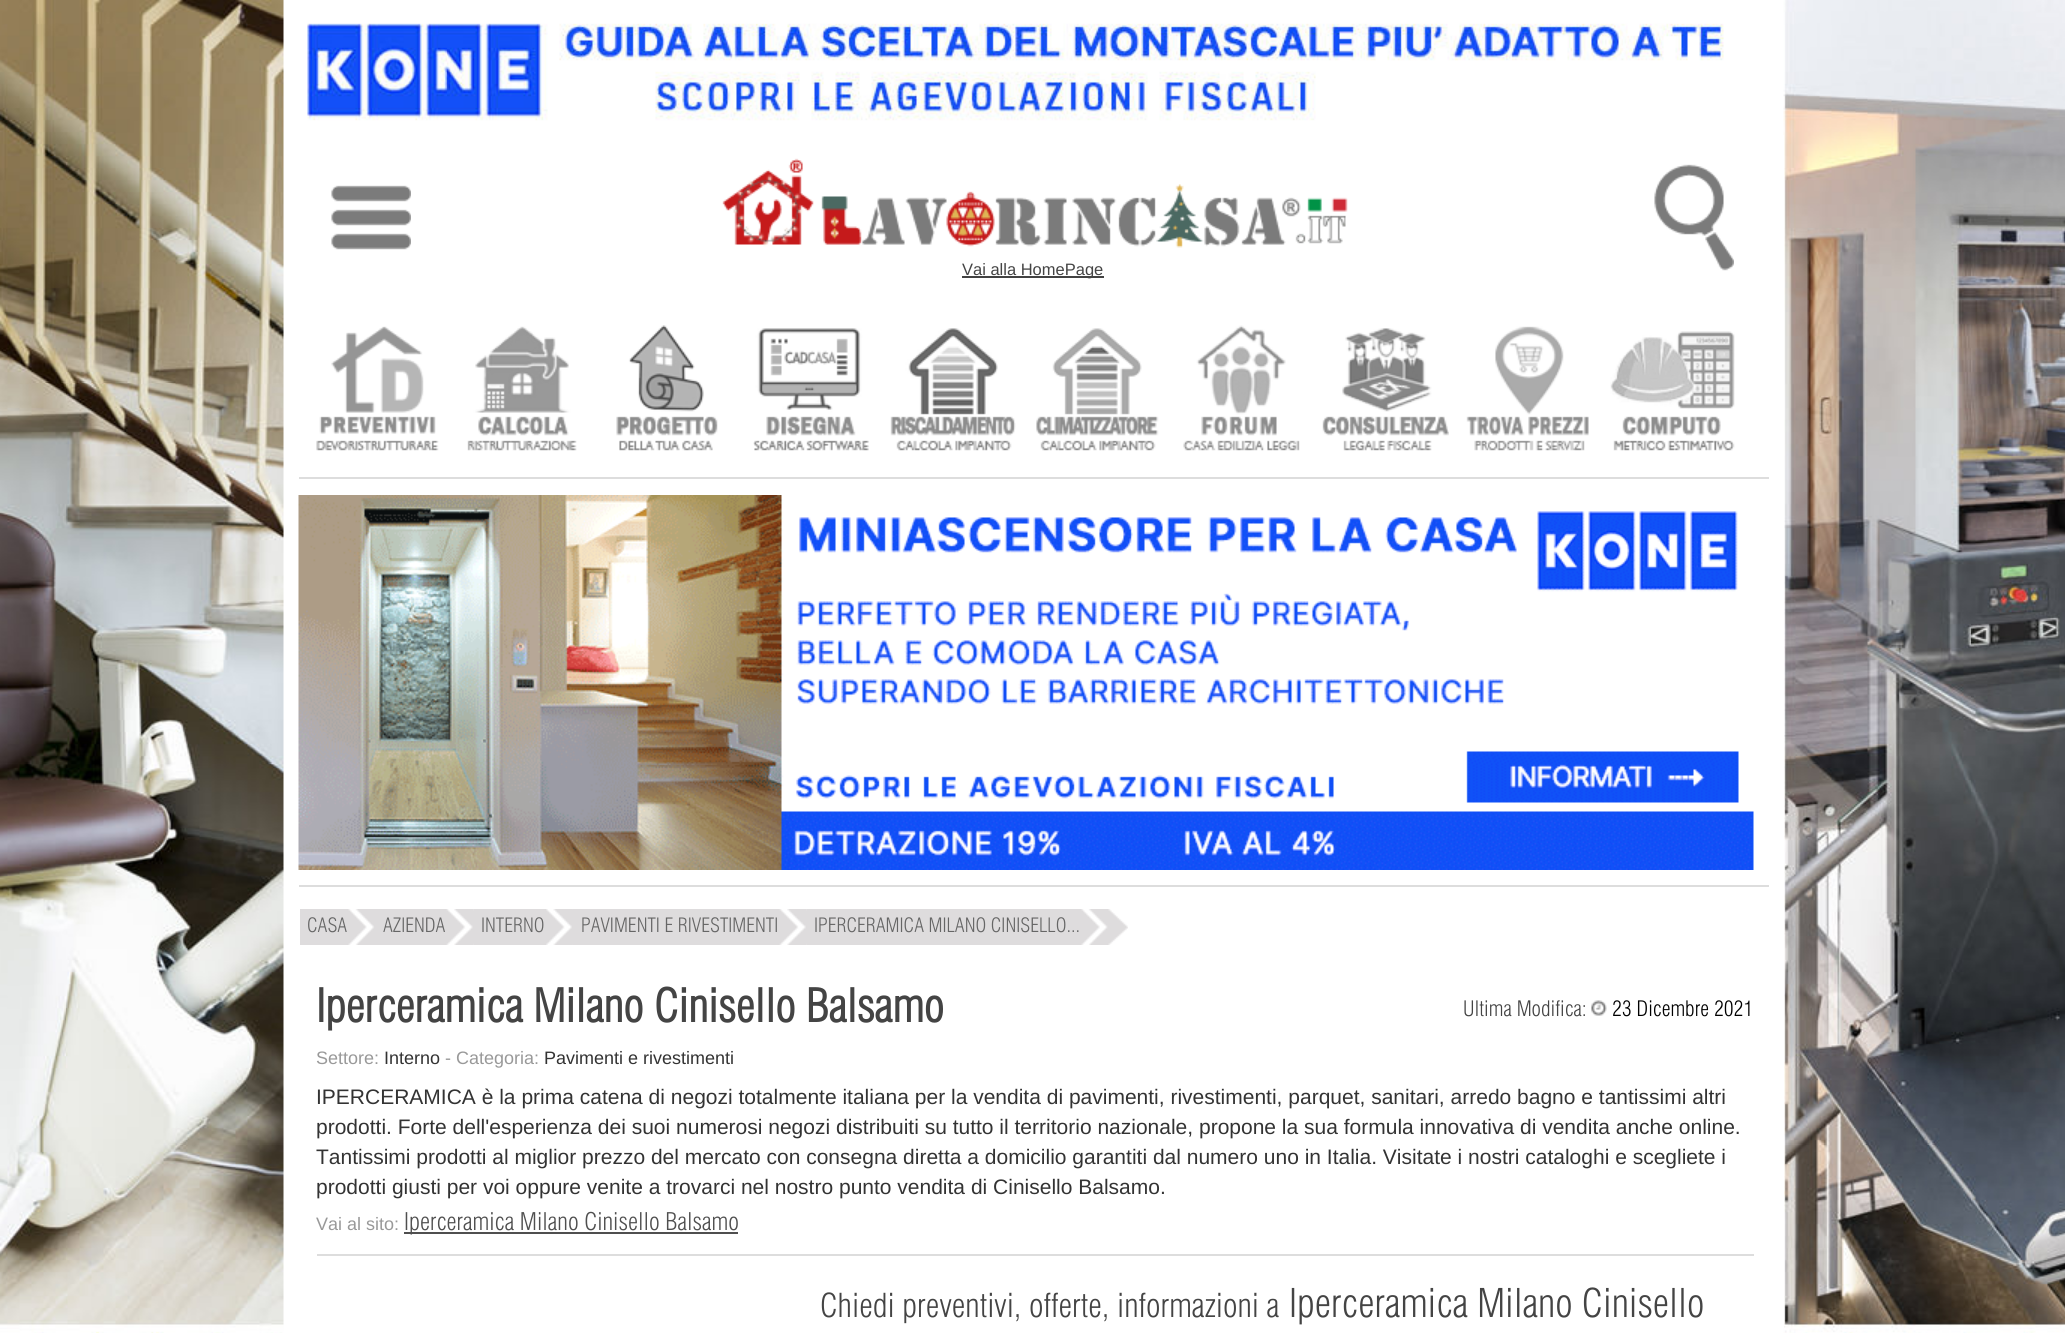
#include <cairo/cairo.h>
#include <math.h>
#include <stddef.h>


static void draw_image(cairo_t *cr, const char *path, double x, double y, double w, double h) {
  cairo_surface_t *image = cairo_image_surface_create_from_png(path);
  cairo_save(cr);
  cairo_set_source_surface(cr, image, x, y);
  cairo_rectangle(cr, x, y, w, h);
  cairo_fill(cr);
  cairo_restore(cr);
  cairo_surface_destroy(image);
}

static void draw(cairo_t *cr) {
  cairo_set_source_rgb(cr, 1, 1, 1);
  cairo_paint(cr);
  draw_image(cr, "images/1.png", 0, 0, 2065, 1333);
  cairo_set_source_rgb(cr, 1, 1, 1);
  cairo_rectangle(cr, 1783, 135, 1, 1193);
  cairo_fill(cr);
  draw_image(cr, "images/2.png", 331, 185, 80, 65);
  draw_image(cr, "images/3.png", 1654, 164, 80, 107);
  draw_image(cr, "images/4.png", 722, 158, 626, 90);
  cairo_set_source_rgb(cr, 66 / 255.0, 66 / 255.0, 66 / 255.0);
  cairo_rectangle(cr, 962, 276, 142, 2);
  cairo_fill(cr);
  draw_image(cr, "images/5.png", 316, 326, 123, 125);
  draw_image(cr, "images/6.png", 467, 326, 110, 125);
  draw_image(cr, "images/7.png", 616, 325, 102, 126);
  draw_image(cr, "images/8.png", 753, 328, 116, 123);
  draw_image(cr, "images/9.png", 890, 328, 126, 123);
  draw_image(cr, "images/10.png", 1036, 328, 123, 123);
  draw_image(cr, "images/11.png", 1183, 325, 117, 126);
  draw_image(cr, "images/12.png", 1322, 328, 127, 123);
  draw_image(cr, "images/13.png", 1466, 326, 123, 125);
  draw_image(cr, "images/14.png", 1610, 331, 125, 120);
  cairo_set_source_rgb(cr, 221 / 255.0, 221 / 255.0, 221 / 255.0);
  cairo_rectangle(cr, 299, 477, 1470, 2);
  cairo_fill(cr);
  draw_image(cr, "images/15.png", 298, 495, 1456, 375);
  cairo_rectangle(cr, 299, 885, 1470, 2);
  cairo_fill(cr);
  draw_image(cr, "images/16.png", 300, 909, 75, 36);
  draw_image(cr, "images/17.png", 375, 909, 99, 36);
  draw_image(cr, "images/18.png", 474, 909, 99, 36);
  draw_image(cr, "images/19.png", 573, 909, 234, 36);
  draw_image(cr, "images/20.png", 807, 909, 321, 36);
  draw_image(cr, "images/21.png", 1591, 1000, 16, 16);
  cairo_set_source_rgb(cr, 79 / 255.0, 79 / 255.0, 79 / 255.0);
  cairo_rectangle(cr, 404, 1232, 334, 2);
  cairo_fill(cr);
  cairo_set_source_rgb(cr, 221 / 255.0, 221 / 255.0, 221 / 255.0);
  cairo_rectangle(cr, 317, 1254, 1437, 2);
  cairo_fill(cr);
  cairo_select_font_face(cr, "Liberation Sans", CAIRO_FONT_SLANT_NORMAL, CAIRO_FONT_WEIGHT_NORMAL);
  cairo_set_font_size(cr, 16.5);
  cairo_set_source_rgb(cr, 68 / 255.0, 68 / 255.0, 68 / 255.0);
  cairo_move_to(cr, 962, 275);
  cairo_show_text(cr, "Vai alla HomePage");
  cairo_select_font_face(cr, "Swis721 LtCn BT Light", CAIRO_FONT_SLANT_NORMAL, CAIRO_FONT_WEIGHT_NORMAL);
  cairo_set_font_size(cr, 19.5);
  cairo_set_source_rgb(cr, 102 / 255.0, 102 / 255.0, 102 / 255.0);
  cairo_move_to(cr, 307, 932);
  cairo_show_text(cr, "CASA");
  cairo_move_to(cr, 383, 932);
  cairo_show_text(cr, "AZIENDA");
  cairo_move_to(cr, 481, 932);
  cairo_show_text(cr, "INTERNO");
  cairo_move_to(cr, 581, 932);
  cairo_show_text(cr, "PAVIMENTI E RIVESTIMENTI");
  cairo_move_to(cr, 814, 932);
  cairo_show_text(cr, "IPERCERAMICA MILANO CINISELLO...");
  cairo_select_font_face(cr, "Swis721 LtCn BT", CAIRO_FONT_SLANT_NORMAL, CAIRO_FONT_WEIGHT_BOLD);
  cairo_set_font_size(cr, 45);
  cairo_set_source_rgb(cr, 68 / 255.0, 68 / 255.0, 68 / 255.0);
  cairo_move_to(cr, 316, 1022);
  cairo_show_text(cr, "Iperceramica Milano Cinisello Balsamo");
  cairo_select_font_face(cr, "Swis721 LtCn BT Light", CAIRO_FONT_SLANT_NORMAL, CAIRO_FONT_WEIGHT_NORMAL);
  cairo_set_font_size(cr, 21);
  cairo_move_to(cr, 1463, 1016);
  cairo_show_text(cr, "Ultima Modifica:");
  cairo_set_source_rgb(cr, 0, 0, 0);
  cairo_move_to(cr, 1612, 1016);
  cairo_show_text(cr, "23 Dicembre 2021");
  cairo_select_font_face(cr, "Liberation Sans", CAIRO_FONT_SLANT_NORMAL, CAIRO_FONT_WEIGHT_NORMAL);
  cairo_set_font_size(cr, 18);
  cairo_set_source_rgb(cr, 153 / 255.0, 153 / 255.0, 153 / 255.0);
  cairo_move_to(cr, 316, 1064);
  cairo_show_text(cr, "Settore:");
  cairo_set_source_rgb(cr, 51 / 255.0, 51 / 255.0, 51 / 255.0);
  cairo_move_to(cr, 384, 1064);
  cairo_show_text(cr, "Interno");
  cairo_set_source_rgb(cr, 153 / 255.0, 153 / 255.0, 153 / 255.0);
  cairo_move_to(cr, 445, 1064);
  cairo_show_text(cr, "- Categoria:");
  cairo_set_source_rgb(cr, 51 / 255.0, 51 / 255.0, 51 / 255.0);
  cairo_move_to(cr, 544, 1064);
  cairo_show_text(cr, "Pavimenti e rivestimenti");
  cairo_set_font_size(cr, 21);
  cairo_move_to(cr, 316, 1104);
  cairo_show_text(cr, "IPERCERAMICA è la prima catena di negozi totalmente italiana per la vendita di pavimenti, rivestimenti, parquet, sanitari, arredo bagno e tantissimi altri");
  cairo_move_to(cr, 316, 1134);
  cairo_show_text(cr, "prodotti. Forte dell'esperienza dei suoi numerosi negozi distribuiti su tutto il territorio nazionale, propone la sua formula innovativa di vendita anche online.");
  cairo_move_to(cr, 316, 1164);
  cairo_show_text(cr, "Tantissimi prodotti al miglior prezzo del mercato con consegna diretta a domicilio garantiti dal numero uno in Italia. Visitate i nostri cataloghi e scegliete i");
  cairo_move_to(cr, 316, 1194);
  cairo_show_text(cr, "prodotti giusti per voi oppure venite a trovarci nel nostro punto vendita di Cinisello Balsamo.");
  cairo_set_font_size(cr, 18);
  cairo_set_source_rgb(cr, 153 / 255.0, 153 / 255.0, 153 / 255.0);
  cairo_move_to(cr, 316, 1230);
  cairo_show_text(cr, "Vai al sito:");
  cairo_select_font_face(cr, "Swis721 LtCn BT Light", CAIRO_FONT_SLANT_NORMAL, CAIRO_FONT_WEIGHT_NORMAL);
  cairo_set_font_size(cr, 24);
  cairo_set_source_rgb(cr, 79 / 255.0, 79 / 255.0, 79 / 255.0);
  cairo_move_to(cr, 404, 1230);
  cairo_show_text(cr, "Iperceramica Milano Cinisello Balsamo");
  cairo_set_font_size(cr, 32.5);
  cairo_set_source_rgb(cr, 68 / 255.0, 68 / 255.0, 68 / 255.0);
  cairo_move_to(cr, 820, 1317);
  cairo_show_text(cr, "Chiedi preventivi, offerte, informazioni a");
  cairo_set_font_size(cr, 39);
  cairo_move_to(cr, 1289, 1317);
  cairo_show_text(cr, "Iperceramica Milano Cinisello");
}

int main(void) {
  cairo_surface_t *surface = cairo_image_surface_create(CAIRO_FORMAT_RGB24, 2065, 1333);
  cairo_t *cr = cairo_create(surface);
  cairo_font_options_t *options = cairo_font_options_create();
  cairo_font_options_set_hint_metrics(options, CAIRO_HINT_METRICS_OFF);
  cairo_font_options_set_hint_style(options, CAIRO_HINT_STYLE_NONE);
  cairo_set_font_options(cr, options);
  cairo_set_miter_limit(cr, 4);
  draw(cr);
  cairo_surface_write_to_png(surface, "out.png");
  cairo_font_options_destroy(options);
  cairo_destroy(cr);
  cairo_surface_destroy(surface);
  return 0;
}
